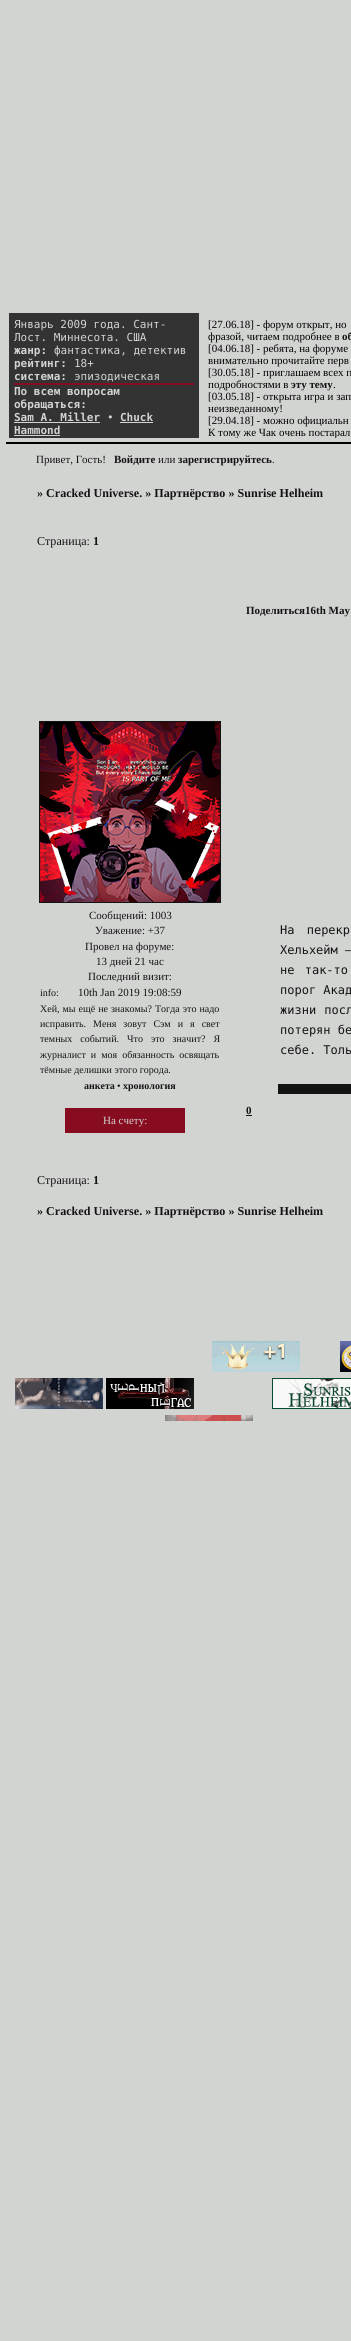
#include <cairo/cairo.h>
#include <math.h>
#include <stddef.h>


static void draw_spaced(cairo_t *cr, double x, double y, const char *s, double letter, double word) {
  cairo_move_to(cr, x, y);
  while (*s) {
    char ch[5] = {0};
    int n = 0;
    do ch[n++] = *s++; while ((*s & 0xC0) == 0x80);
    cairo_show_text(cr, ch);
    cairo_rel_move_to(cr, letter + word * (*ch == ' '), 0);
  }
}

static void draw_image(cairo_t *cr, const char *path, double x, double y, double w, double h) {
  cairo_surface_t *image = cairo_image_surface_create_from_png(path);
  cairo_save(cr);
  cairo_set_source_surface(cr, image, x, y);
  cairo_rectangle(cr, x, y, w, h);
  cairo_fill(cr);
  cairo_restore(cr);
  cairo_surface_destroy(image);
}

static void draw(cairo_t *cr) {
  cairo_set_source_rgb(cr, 210 / 255.0, 212 / 255.0, 210 / 255.0);
  cairo_paint(cr);
  cairo_set_source_rgb(cr, 0, 0, 0);
  cairo_rectangle(cr, 6, 442, 345, 2);
  cairo_fill(cr);
  cairo_set_source_rgb(cr, 51 / 255.0, 51 / 255.0, 51 / 255.0);
  cairo_rectangle(cr, 9, 313, 190, 125);
  cairo_fill(cr);
  cairo_set_source_rgb(cr, 135 / 255.0, 12 / 255.0, 32 / 255.0);
  cairo_rectangle(cr, 14, 383, 180, 2);
  cairo_fill(cr);
  cairo_set_source_rgb(cr, 210 / 255.0, 212 / 255.0, 210 / 255.0);
  cairo_rectangle(cr, 14, 422, 86, 1);
  cairo_fill(cr);
  cairo_rectangle(cr, 120, 422, 33, 1);
  cairo_fill(cr);
  cairo_rectangle(cr, 14, 435, 46, 1);
  cairo_fill(cr);
  cairo_rectangle(cr, 39.5, 721.5, 181, 181);
  cairo_set_source_rgb(cr, 19 / 255.0, 19 / 255.0, 19 / 255.0);
  cairo_set_line_width(cr, 1);
  cairo_stroke(cr);
  draw_image(cr, "images/1.png", 40, 722, 180, 180);
  cairo_set_source_rgb(cr, 135 / 255.0, 12 / 255.0, 32 / 255.0);
  cairo_rectangle(cr, 65, 1108, 120, 25);
  cairo_fill(cr);
  cairo_set_source_rgb(cr, 19 / 255.0, 19 / 255.0, 19 / 255.0);
  cairo_new_path(cr);
  cairo_move_to(cr, 278, 1084);
  cairo_line_to(cr, 278, 1094);
  cairo_line_to(cr, 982, 1094);
  cairo_line_to(cr, 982, 647);
  cairo_line_to(cr, 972, 647);
  cairo_line_to(cr, 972, 1084);
  cairo_close_path(cr);
  cairo_fill(cr);
  cairo_rectangle(cr, 246, 1115, 6, 1);
  cairo_fill(cr);
  draw_image(cr, "images/2.png", 212, 1341, 88, 31);
  draw_image(cr, "images/3.png", 340, 1341, 11, 31);
  draw_image(cr, "images/4.png", 15, 1378, 88, 31);
  draw_image(cr, "images/5.png", 106, 1378, 88, 31);
  draw_image(cr, "images/6.png", 272, 1378, 79, 31);
  draw_image(cr, "images/7.png", 165, 1415, 88, 6);
  cairo_select_font_face(cr, "DejaVu Sans Mono", CAIRO_FONT_SLANT_NORMAL, CAIRO_FONT_WEIGHT_NORMAL);
  cairo_set_font_size(cr, 11);
  cairo_set_source_rgb(cr, 210 / 255.0, 212 / 255.0, 210 / 255.0);
  cairo_move_to(cr, 14, 328);
  cairo_show_text(cr, "Январь 2009 года. Сант-");
  cairo_move_to(cr, 14, 341);
  cairo_show_text(cr, "Лост. Миннесота. США");
  cairo_select_font_face(cr, "DejaVu Sans Mono", CAIRO_FONT_SLANT_NORMAL, CAIRO_FONT_WEIGHT_BOLD);
  cairo_move_to(cr, 14, 354);
  cairo_show_text(cr, "жанр:");
  cairo_select_font_face(cr, "DejaVu Sans Mono", CAIRO_FONT_SLANT_NORMAL, CAIRO_FONT_WEIGHT_NORMAL);
  cairo_move_to(cr, 54, 354);
  cairo_show_text(cr, "фантастика, детектив");
  cairo_select_font_face(cr, "DejaVu Sans Mono", CAIRO_FONT_SLANT_NORMAL, CAIRO_FONT_WEIGHT_BOLD);
  cairo_move_to(cr, 14, 367);
  cairo_show_text(cr, "рейтинг:");
  cairo_select_font_face(cr, "DejaVu Sans Mono", CAIRO_FONT_SLANT_NORMAL, CAIRO_FONT_WEIGHT_NORMAL);
  cairo_move_to(cr, 74, 367);
  cairo_show_text(cr, "18+");
  cairo_select_font_face(cr, "DejaVu Sans Mono", CAIRO_FONT_SLANT_NORMAL, CAIRO_FONT_WEIGHT_BOLD);
  cairo_move_to(cr, 14, 380);
  cairo_show_text(cr, "система:");
  cairo_select_font_face(cr, "DejaVu Sans Mono", CAIRO_FONT_SLANT_NORMAL, CAIRO_FONT_WEIGHT_NORMAL);
  cairo_move_to(cr, 74, 380);
  cairo_show_text(cr, "эпизодическая");
  cairo_select_font_face(cr, "DejaVu Sans Mono", CAIRO_FONT_SLANT_NORMAL, CAIRO_FONT_WEIGHT_BOLD);
  cairo_move_to(cr, 14, 395);
  cairo_show_text(cr, "По всем вопросам");
  cairo_move_to(cr, 14, 408);
  cairo_show_text(cr, "обращаться:");
  cairo_move_to(cr, 14, 421);
  cairo_show_text(cr, "Sam A. Miller");
  cairo_select_font_face(cr, "DejaVu Sans Mono", CAIRO_FONT_SLANT_NORMAL, CAIRO_FONT_WEIGHT_NORMAL);
  cairo_move_to(cr, 107, 421);
  cairo_show_text(cr, "•");
  cairo_select_font_face(cr, "DejaVu Sans Mono", CAIRO_FONT_SLANT_NORMAL, CAIRO_FONT_WEIGHT_BOLD);
  cairo_move_to(cr, 120, 421);
  cairo_show_text(cr, "Chuck");
  cairo_move_to(cr, 14, 434);
  cairo_show_text(cr, "Hammond");
  cairo_select_font_face(cr, "Liberation Serif", CAIRO_FONT_SLANT_NORMAL, CAIRO_FONT_WEIGHT_NORMAL);
  cairo_set_source_rgb(cr, 0, 0, 0);
  cairo_move_to(cr, 208, 328);
  cairo_show_text(cr, "[27.06.18] - форум открыт, но");
  cairo_move_to(cr, 208, 340);
  cairo_show_text(cr, "фразой, читаем подробнее в");
  cairo_select_font_face(cr, "Liberation Serif", CAIRO_FONT_SLANT_NORMAL, CAIRO_FONT_WEIGHT_BOLD);
  cairo_set_source_rgb(cr, 19 / 255.0, 19 / 255.0, 19 / 255.0);
  cairo_move_to(cr, 342, 340);
  cairo_show_text(cr, "об");
  cairo_select_font_face(cr, "Liberation Serif", CAIRO_FONT_SLANT_NORMAL, CAIRO_FONT_WEIGHT_NORMAL);
  cairo_set_source_rgb(cr, 0, 0, 0);
  cairo_move_to(cr, 208, 352);
  cairo_show_text(cr, "[04.06.18] - ребята, на форуме");
  cairo_move_to(cr, 208, 364);
  cairo_show_text(cr, "внимательно прочитайте перв");
  cairo_move_to(cr, 208, 376);
  cairo_show_text(cr, "[30.05.18] - приглашаем всех п");
  cairo_move_to(cr, 208, 388);
  cairo_show_text(cr, "подробностями в");
  cairo_select_font_face(cr, "Liberation Serif", CAIRO_FONT_SLANT_NORMAL, CAIRO_FONT_WEIGHT_BOLD);
  cairo_set_source_rgb(cr, 19 / 255.0, 19 / 255.0, 19 / 255.0);
  cairo_move_to(cr, 291, 388);
  cairo_show_text(cr, "эту тему");
  cairo_select_font_face(cr, "Liberation Serif", CAIRO_FONT_SLANT_NORMAL, CAIRO_FONT_WEIGHT_NORMAL);
  cairo_set_source_rgb(cr, 0, 0, 0);
  cairo_move_to(cr, 333, 388);
  cairo_show_text(cr, ".");
  cairo_move_to(cr, 208, 400);
  cairo_show_text(cr, "[03.05.18] - открыта игра и зап");
  cairo_move_to(cr, 208, 412);
  cairo_show_text(cr, "неизведанному!");
  cairo_move_to(cr, 208, 424);
  cairo_show_text(cr, "[29.04.18] - можно официальн");
  cairo_save(cr);
  cairo_rectangle(cr, 203, 313, 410, 125);
  cairo_clip(cr);
  cairo_move_to(cr, 208, 436);
  cairo_show_text(cr, "К тому же Чак очень постарал");
  cairo_restore(cr);
  cairo_set_source_rgb(cr, 19 / 255.0, 19 / 255.0, 19 / 255.0);
  cairo_move_to(cr, 36, 463);
  cairo_show_text(cr, "Привет, Гость!");
  cairo_select_font_face(cr, "Liberation Serif", CAIRO_FONT_SLANT_NORMAL, CAIRO_FONT_WEIGHT_BOLD);
  cairo_move_to(cr, 114, 463);
  cairo_show_text(cr, "Войдите");
  cairo_select_font_face(cr, "Liberation Serif", CAIRO_FONT_SLANT_NORMAL, CAIRO_FONT_WEIGHT_NORMAL);
  cairo_move_to(cr, 158, 463);
  cairo_show_text(cr, "или");
  cairo_select_font_face(cr, "Liberation Serif", CAIRO_FONT_SLANT_NORMAL, CAIRO_FONT_WEIGHT_BOLD);
  cairo_move_to(cr, 178, 463);
  cairo_show_text(cr, "зарегистрируйтесь");
  cairo_select_font_face(cr, "Liberation Serif", CAIRO_FONT_SLANT_NORMAL, CAIRO_FONT_WEIGHT_NORMAL);
  cairo_move_to(cr, 272, 463);
  cairo_show_text(cr, ".");
  cairo_select_font_face(cr, "Liberation Serif", CAIRO_FONT_SLANT_NORMAL, CAIRO_FONT_WEIGHT_BOLD);
  cairo_set_font_size(cr, 12.1);
  cairo_move_to(cr, 37, 497);
  cairo_show_text(cr, "» Cracked Universe. » Партнёрство » Sunrise Helheim");
  cairo_select_font_face(cr, "Liberation Serif", CAIRO_FONT_SLANT_NORMAL, CAIRO_FONT_WEIGHT_NORMAL);
  cairo_move_to(cr, 37, 545);
  cairo_show_text(cr, "Страница:");
  cairo_select_font_face(cr, "Liberation Serif", CAIRO_FONT_SLANT_NORMAL, CAIRO_FONT_WEIGHT_BOLD);
  cairo_move_to(cr, 93, 545);
  cairo_show_text(cr, "1");
  cairo_set_font_size(cr, 11);
  cairo_move_to(cr, 246, 614);
  cairo_show_text(cr, "Поделиться16th May");
  cairo_select_font_face(cr, "Liberation Serif", CAIRO_FONT_SLANT_NORMAL, CAIRO_FONT_WEIGHT_NORMAL);
  cairo_move_to(cr, 89, 919);
  cairo_show_text(cr, "Сообщений: 1003");
  cairo_move_to(cr, 95, 934);
  cairo_show_text(cr, "Уважение: +37");
  cairo_move_to(cr, 85, 950);
  cairo_show_text(cr, "Провел на форуме:");
  cairo_move_to(cr, 96, 965);
  cairo_show_text(cr, "13 дней 21 час");
  cairo_move_to(cr, 88, 980);
  cairo_show_text(cr, "Последний визит:");
  cairo_move_to(cr, 78, 996);
  cairo_show_text(cr, "10th Jan 2019 19:08:59");
  cairo_set_font_size(cr, 10);
  cairo_move_to(cr, 40, 996);
  cairo_show_text(cr, "info:");
  draw_spaced(cr, 40, 1012, "Хей, мы ещё не знакомы? Тогда это надо", 0, 0.5);
  draw_spaced(cr, 40, 1027, "исправить. Меня зовут Сэм и я свет", 0, 4.5);
  draw_spaced(cr, 40, 1042, "темных событий. Что это значит? Я", 0, 5.5);
  draw_spaced(cr, 40, 1058, "журналист и моя обязанность освящать", 0, 2.5);
  cairo_move_to(cr, 40, 1073);
  cairo_show_text(cr, "тёмные делишки этого города.");
  cairo_select_font_face(cr, "Liberation Serif", CAIRO_FONT_SLANT_NORMAL, CAIRO_FONT_WEIGHT_BOLD);
  cairo_move_to(cr, 84, 1089);
  cairo_show_text(cr, "анкета");
  cairo_select_font_face(cr, "Liberation Serif", CAIRO_FONT_SLANT_NORMAL, CAIRO_FONT_WEIGHT_NORMAL);
  cairo_move_to(cr, 117, 1089);
  cairo_show_text(cr, "•");
  cairo_select_font_face(cr, "Liberation Serif", CAIRO_FONT_SLANT_NORMAL, CAIRO_FONT_WEIGHT_BOLD);
  cairo_move_to(cr, 123, 1089);
  cairo_show_text(cr, "хронология");
  cairo_select_font_face(cr, "Liberation Serif", CAIRO_FONT_SLANT_NORMAL, CAIRO_FONT_WEIGHT_NORMAL);
  cairo_set_font_size(cr, 11);
  cairo_set_source_rgb(cr, 210 / 255.0, 212 / 255.0, 210 / 255.0);
  cairo_move_to(cr, 103, 1124);
  cairo_show_text(cr, "На счету:");
  cairo_select_font_face(cr, "DejaVu Sans Mono", CAIRO_FONT_SLANT_NORMAL, CAIRO_FONT_WEIGHT_NORMAL);
  cairo_set_font_size(cr, 12);
  cairo_set_source_rgb(cr, 19 / 255.0, 19 / 255.0, 19 / 255.0);
  draw_spaced(cr, 280, 934, "На перекр", 0, 5);
  cairo_move_to(cr, 280, 954);
  cairo_show_text(cr, "Хельхейм —");
  draw_spaced(cr, 280, 974, "не так-то", 0, 3);
  cairo_move_to(cr, 280, 994);
  cairo_show_text(cr, "порог Акад");
  draw_spaced(cr, 280, 1014, "жизни посл", 0, 1);
  cairo_move_to(cr, 280, 1034);
  cairo_show_text(cr, "потерян бе");
  cairo_move_to(cr, 280, 1054);
  cairo_show_text(cr, "себе. Толь");
  cairo_select_font_face(cr, "Liberation Serif", CAIRO_FONT_SLANT_NORMAL, CAIRO_FONT_WEIGHT_BOLD);
  cairo_set_font_size(cr, 11);
  cairo_move_to(cr, 246, 1114);
  cairo_show_text(cr, "0");
  cairo_select_font_face(cr, "Liberation Serif", CAIRO_FONT_SLANT_NORMAL, CAIRO_FONT_WEIGHT_NORMAL);
  cairo_set_font_size(cr, 12.1);
  cairo_move_to(cr, 37, 1184);
  cairo_show_text(cr, "Страница:");
  cairo_select_font_face(cr, "Liberation Serif", CAIRO_FONT_SLANT_NORMAL, CAIRO_FONT_WEIGHT_BOLD);
  cairo_move_to(cr, 93, 1184);
  cairo_show_text(cr, "1");
  cairo_move_to(cr, 37, 1215);
  cairo_show_text(cr, "» Cracked Universe. » Партнёрство » Sunrise Helheim");
}

int main(void) {
  cairo_surface_t *surface = cairo_image_surface_create(CAIRO_FORMAT_RGB24, 351, 2341);
  cairo_t *cr = cairo_create(surface);
  cairo_font_options_t *options = cairo_font_options_create();
  cairo_font_options_set_hint_metrics(options, CAIRO_HINT_METRICS_OFF);
  cairo_font_options_set_hint_style(options, CAIRO_HINT_STYLE_NONE);
  cairo_set_font_options(cr, options);
  cairo_set_miter_limit(cr, 4);
  draw(cr);
  cairo_surface_write_to_png(surface, "out.png");
  cairo_font_options_destroy(options);
  cairo_destroy(cr);
  cairo_surface_destroy(surface);
  return 0;
}
